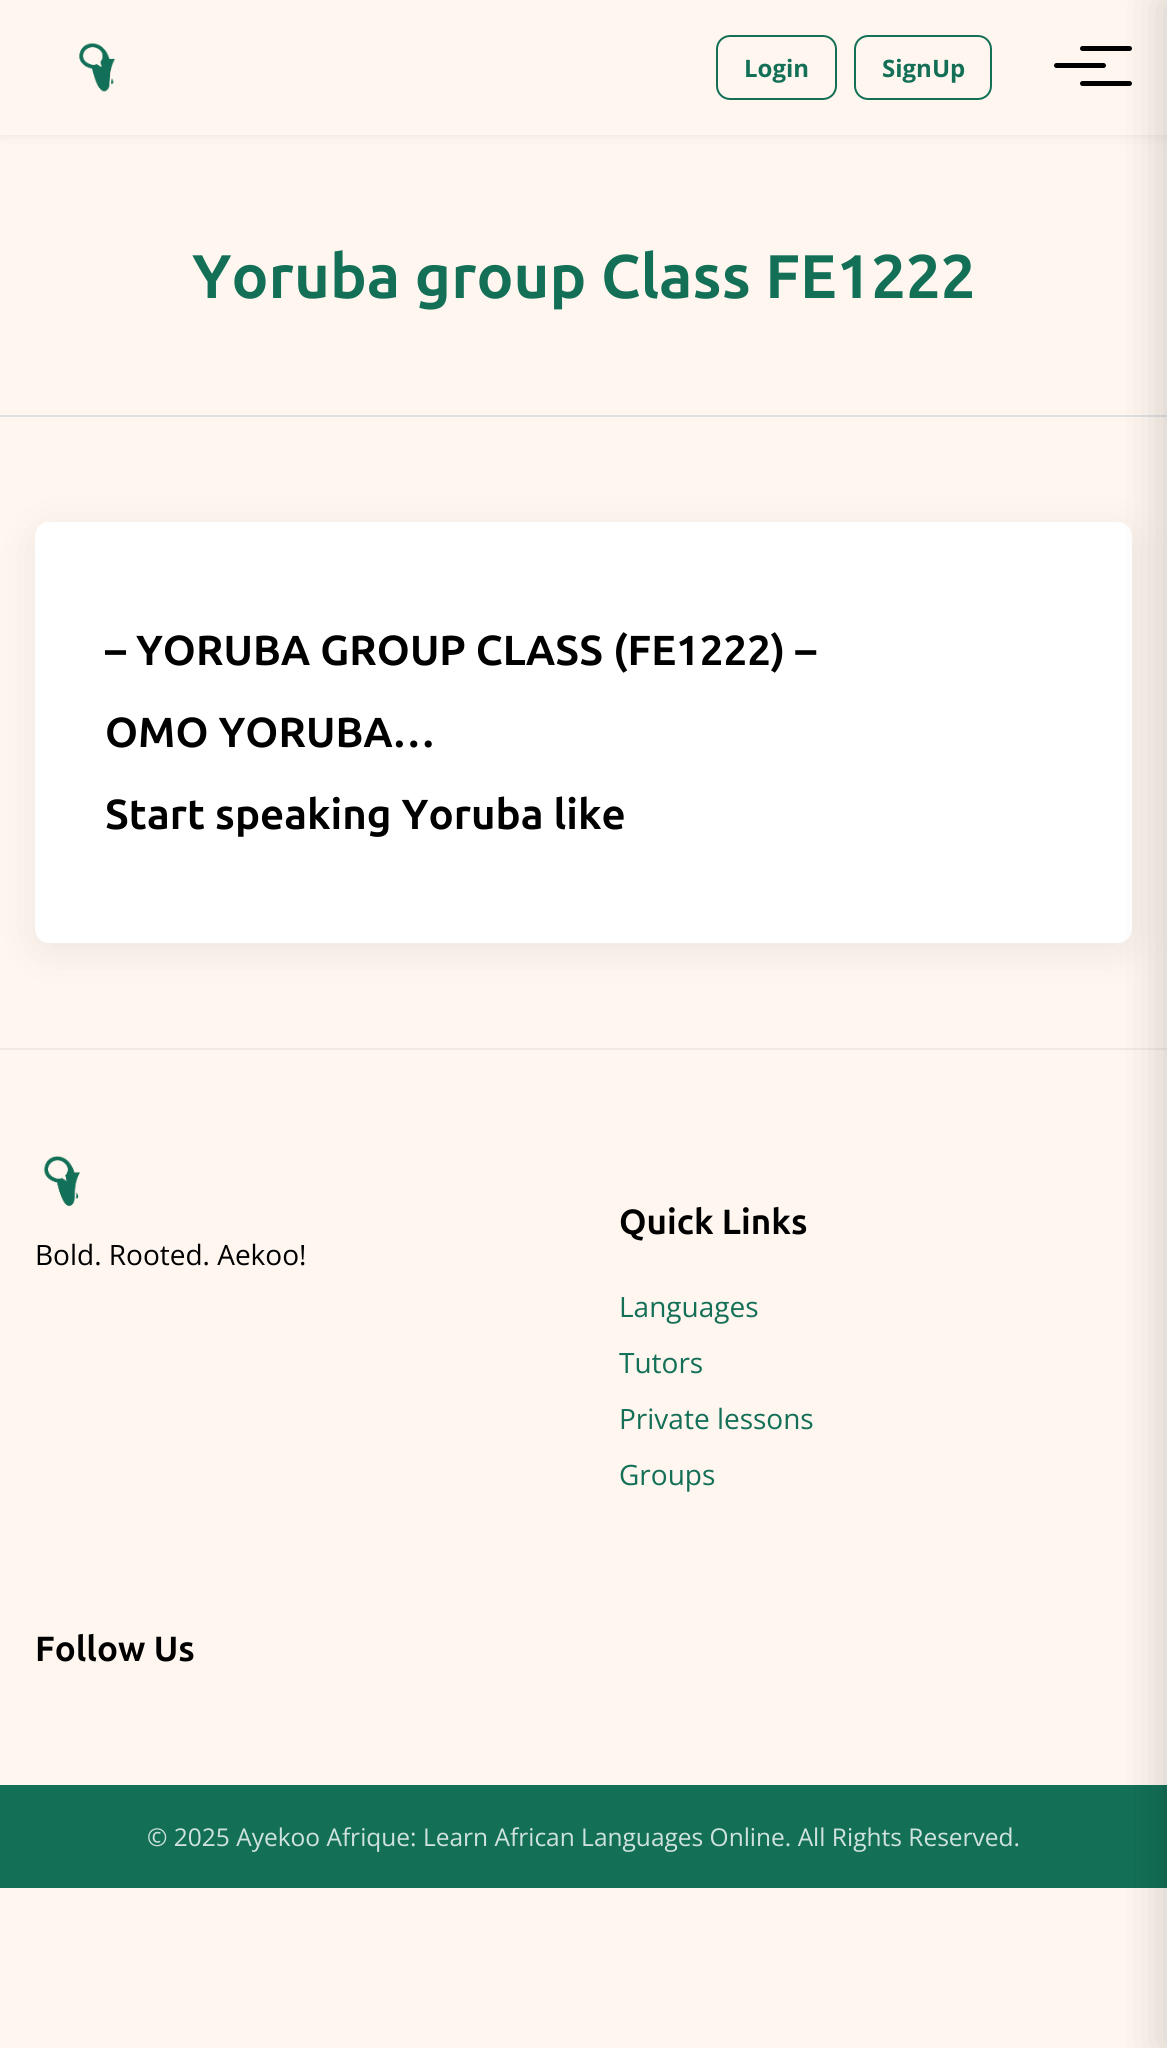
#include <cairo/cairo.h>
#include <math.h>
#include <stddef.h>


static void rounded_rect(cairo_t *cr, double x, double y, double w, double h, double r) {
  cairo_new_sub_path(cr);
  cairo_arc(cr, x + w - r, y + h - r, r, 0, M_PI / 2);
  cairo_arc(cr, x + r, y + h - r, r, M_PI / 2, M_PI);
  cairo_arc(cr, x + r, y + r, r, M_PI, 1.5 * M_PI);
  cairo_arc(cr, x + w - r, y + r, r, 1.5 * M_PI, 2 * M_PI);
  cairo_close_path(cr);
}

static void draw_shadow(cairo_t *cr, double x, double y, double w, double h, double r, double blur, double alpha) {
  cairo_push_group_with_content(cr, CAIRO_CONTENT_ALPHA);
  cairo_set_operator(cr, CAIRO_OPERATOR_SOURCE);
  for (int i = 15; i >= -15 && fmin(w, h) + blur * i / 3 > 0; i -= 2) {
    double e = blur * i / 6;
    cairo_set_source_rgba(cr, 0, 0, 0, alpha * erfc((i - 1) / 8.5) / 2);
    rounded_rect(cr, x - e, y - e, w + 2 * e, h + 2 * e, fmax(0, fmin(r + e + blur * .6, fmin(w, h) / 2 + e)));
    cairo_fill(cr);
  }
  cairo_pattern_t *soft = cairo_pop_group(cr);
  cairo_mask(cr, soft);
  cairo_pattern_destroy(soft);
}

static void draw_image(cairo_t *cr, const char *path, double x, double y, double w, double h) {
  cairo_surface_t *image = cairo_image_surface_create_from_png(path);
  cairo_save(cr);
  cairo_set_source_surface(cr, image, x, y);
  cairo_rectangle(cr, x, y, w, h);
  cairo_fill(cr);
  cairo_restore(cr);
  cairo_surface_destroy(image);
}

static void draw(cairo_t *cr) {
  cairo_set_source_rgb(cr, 254 / 255.0, 246 / 255.0, 239 / 255.0);
  cairo_paint(cr);
  cairo_set_source_rgb(cr, 0, 0, 0);
  draw_shadow(cr, 0, 4, 1167, 134, 0, 4.5, 0.05);
  cairo_set_source_rgb(cr, 254 / 255.0, 246 / 255.0, 239 / 255.0);
  cairo_rectangle(cr, 0, 0, 1167, 135);
  cairo_fill(cr);
  draw_image(cr, "images/1.png", 79, 42, 37, 50);
  rounded_rect(cr, 717, 36, 119, 63, 13);
  cairo_set_source_rgb(cr, 19 / 255.0, 112 / 255.0, 87 / 255.0);
  cairo_stroke(cr);
  rounded_rect(cr, 855, 36, 136, 63, 13);
  cairo_stroke(cr);
  cairo_set_source_rgb(cr, 0, 0, 0);
  rounded_rect(cr, 1054, 63, 52, 5, 2.5);
  cairo_fill(cr);
  rounded_rect(cr, 1080, 46, 52, 5, 2.5);
  cairo_fill(cr);
  rounded_rect(cr, 1080, 81, 52, 5, 2.5);
  cairo_fill(cr);
  cairo_set_source_rgb(cr, 224 / 255.0, 224 / 255.0, 224 / 255.0);
  cairo_rectangle(cr, 0, 415, 1167, 2);
  cairo_fill(cr);
  cairo_set_source_rgb(cr, 0, 0, 0);
  draw_shadow(cr, 35, 530, 1097, 422, 14, 22, 0.07);
  cairo_set_source_rgb(cr, 1, 1, 1);
  rounded_rect(cr, 35, 522, 1097, 421, 14);
  cairo_fill(cr);
  cairo_set_source_rgb(cr, 241 / 255.0, 234 / 255.0, 227 / 255.0);
  cairo_rectangle(cr, 0, 1048, 1167, 2);
  cairo_fill(cr);
  cairo_set_source_rgb(cr, 19 / 255.0, 112 / 255.0, 87 / 255.0);
  cairo_rectangle(cr, 0, 1785, 1167, 103);
  cairo_fill(cr);
  cairo_set_source_rgb(cr, 0, 0, 0);
  draw_shadow(cr, 1159, 0, 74, 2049, 0, 22, 0.15);
  draw_image(cr, "images/2.png", 43, 1156, 37, 51);
  cairo_select_font_face(cr, "Open Sans", CAIRO_FONT_SLANT_NORMAL, CAIRO_FONT_WEIGHT_BOLD);
  cairo_set_font_size(cr, 24);
  cairo_set_source_rgb(cr, 19 / 255.0, 112 / 255.0, 87 / 255.0);
  cairo_move_to(cr, 744, 77);
  cairo_show_text(cr, "Login");
  cairo_move_to(cr, 882, 77);
  cairo_show_text(cr, "SignUp");
  cairo_select_font_face(cr, "Ubuntu", CAIRO_FONT_SLANT_NORMAL, CAIRO_FONT_WEIGHT_BOLD);
  cairo_set_font_size(cr, 61.6);
  cairo_move_to(cr, 192, 298);
  cairo_show_text(cr, "Yoruba group Class FE1222");
  cairo_set_font_size(cr, 42);
  cairo_set_source_rgb(cr, 0, 0, 0);
  cairo_move_to(cr, 105, 665);
  cairo_show_text(cr, "– YORUBA GROUP CLASS (FE1222) –");
  cairo_move_to(cr, 105, 747);
  cairo_show_text(cr, "OMO YORUBA…");
  cairo_move_to(cr, 105, 829);
  cairo_show_text(cr, "Start speaking Yoruba like");
  cairo_select_font_face(cr, "Open Sans", CAIRO_FONT_SLANT_NORMAL, CAIRO_FONT_WEIGHT_NORMAL);
  cairo_set_font_size(cr, 28);
  cairo_move_to(cr, 35, 1265);
  cairo_show_text(cr, "Bold. Rooted. Aekoo!");
  cairo_select_font_face(cr, "Ubuntu", CAIRO_FONT_SLANT_NORMAL, CAIRO_FONT_WEIGHT_BOLD);
  cairo_set_font_size(cr, 35);
  cairo_move_to(cr, 619, 1234);
  cairo_show_text(cr, "Quick Links");
  cairo_select_font_face(cr, "Open Sans", CAIRO_FONT_SLANT_NORMAL, CAIRO_FONT_WEIGHT_NORMAL);
  cairo_set_font_size(cr, 28);
  cairo_set_source_rgb(cr, 19 / 255.0, 112 / 255.0, 87 / 255.0);
  cairo_move_to(cr, 619, 1317);
  cairo_show_text(cr, "Languages");
  cairo_move_to(cr, 619, 1373);
  cairo_show_text(cr, "Tutors");
  cairo_move_to(cr, 619, 1429);
  cairo_show_text(cr, "Private lessons");
  cairo_move_to(cr, 619, 1485);
  cairo_show_text(cr, "Groups");
  cairo_select_font_face(cr, "Ubuntu", CAIRO_FONT_SLANT_NORMAL, CAIRO_FONT_WEIGHT_BOLD);
  cairo_set_font_size(cr, 35);
  cairo_set_source_rgb(cr, 0, 0, 0);
  cairo_move_to(cr, 35, 1661);
  cairo_show_text(cr, "Follow Us");
  cairo_select_font_face(cr, "Open Sans", CAIRO_FONT_SLANT_NORMAL, CAIRO_FONT_WEIGHT_NORMAL);
  cairo_set_font_size(cr, 24.5);
  cairo_set_source_rgb(cr, 208 / 255.0, 226 / 255.0, 221 / 255.0);
  cairo_move_to(cr, 147, 1846);
  cairo_show_text(cr, "© 2025 Ayekoo Afrique: Learn African Languages Online. All Rights Reserved.");
}

int main(void) {
  cairo_surface_t *surface = cairo_image_surface_create(CAIRO_FORMAT_RGB24, 1167, 2048);
  cairo_t *cr = cairo_create(surface);
  cairo_font_options_t *options = cairo_font_options_create();
  cairo_font_options_set_hint_metrics(options, CAIRO_HINT_METRICS_OFF);
  cairo_font_options_set_hint_style(options, CAIRO_HINT_STYLE_NONE);
  cairo_set_font_options(cr, options);
  cairo_set_miter_limit(cr, 4);
  draw(cr);
  cairo_surface_write_to_png(surface, "out.png");
  cairo_font_options_destroy(options);
  cairo_destroy(cr);
  cairo_surface_destroy(surface);
  return 0;
}
